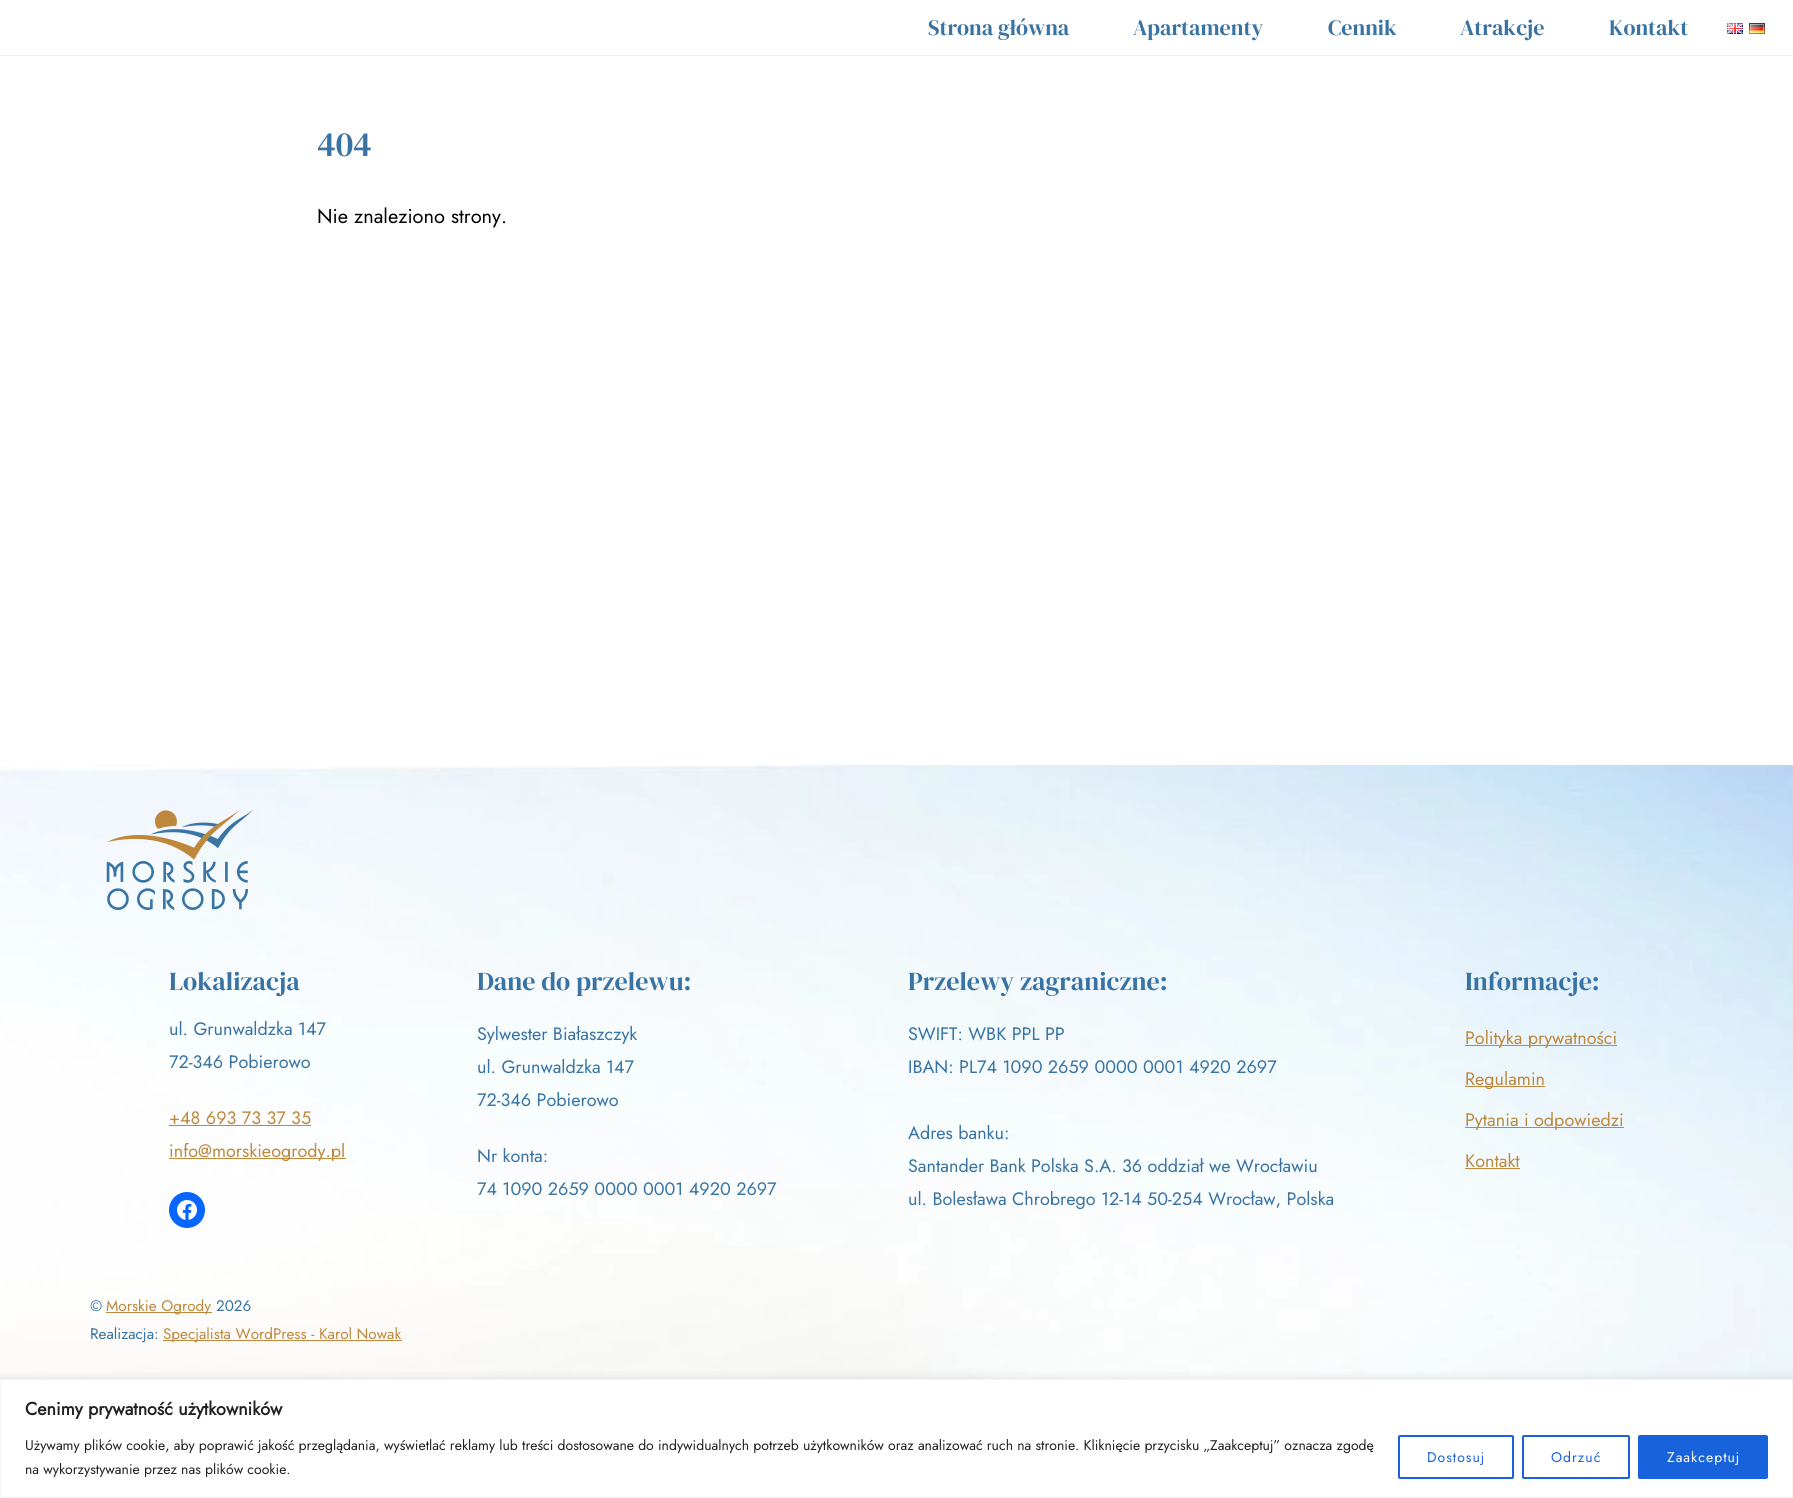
#include <cairo/cairo.h>
#include <math.h>
#include <stddef.h>


static void draw_spaced(cairo_t *cr, double x, double y, const char *s, double letter, double word) {
  cairo_move_to(cr, x, y);
  while (*s) {
    char ch[5] = {0};
    int n = 0;
    do ch[n++] = *s++; while ((*s & 0xC0) == 0x80);
    cairo_show_text(cr, ch);
    cairo_rel_move_to(cr, letter + word * (*ch == ' '), 0);
  }
}

static void rounded_rect(cairo_t *cr, double x, double y, double w, double h, double r) {
  cairo_new_sub_path(cr);
  cairo_arc(cr, x + w - r, y + h - r, r, 0, M_PI / 2);
  cairo_arc(cr, x + r, y + h - r, r, M_PI / 2, M_PI);
  cairo_arc(cr, x + r, y + r, r, M_PI, 1.5 * M_PI);
  cairo_arc(cr, x + w - r, y + r, r, 1.5 * M_PI, 2 * M_PI);
  cairo_close_path(cr);
}

static void draw_shadow(cairo_t *cr, double x, double y, double w, double h, double r, double blur, double alpha) {
  cairo_push_group_with_content(cr, CAIRO_CONTENT_ALPHA);
  cairo_set_operator(cr, CAIRO_OPERATOR_SOURCE);
  for (int i = 15; i >= -15 && fmin(w, h) + blur * i / 3 > 0; i -= 2) {
    double e = blur * i / 6;
    cairo_set_source_rgba(cr, 0, 0, 0, alpha * erfc((i - 1) / 8.5) / 2);
    rounded_rect(cr, x - e, y - e, w + 2 * e, h + 2 * e, fmax(0, fmin(r + e + blur * .6, fmin(w, h) / 2 + e)));
    cairo_fill(cr);
  }
  cairo_pattern_t *soft = cairo_pop_group(cr);
  cairo_mask(cr, soft);
  cairo_pattern_destroy(soft);
}

static void draw_image(cairo_t *cr, const char *path, double x, double y, double w, double h) {
  cairo_surface_t *image = cairo_image_surface_create_from_png(path);
  cairo_save(cr);
  cairo_set_source_surface(cr, image, x, y);
  cairo_rectangle(cr, x, y, w, h);
  cairo_fill(cr);
  cairo_restore(cr);
  cairo_surface_destroy(image);
}

static void draw(cairo_t *cr) {
  cairo_set_source_rgb(cr, 1, 1, 1);
  cairo_paint(cr);
  cairo_set_source_rgb(cr, 242 / 255.0, 242 / 255.0, 242 / 255.0);
  cairo_rectangle(cr, 0, 55, 1793, 1);
  cairo_fill(cr);
  draw_image(cr, "images/1.png", 1727, 23, 16, 11);
  draw_image(cr, "images/2.png", 1749, 23, 16, 11);
  draw_image(cr, "images/3.png", 0, 765, 1793, 614);
  draw_image(cr, "images/4.png", 106, 810, 147, 100);
  cairo_set_source_rgb(cr, 190 / 255.0, 136 / 255.0, 61 / 255.0);
  cairo_rectangle(cr, 169, 1125, 142, 1);
  cairo_fill(cr);
  cairo_rectangle(cr, 169, 1158, 177, 1);
  cairo_fill(cr);
  cairo_set_source_rgb(cr, 8 / 255.0, 102 / 255.0, 1);
  cairo_arc(cr, 187, 1210, 18, 0, 2 * M_PI);
  cairo_fill(cr);
  draw_image(cr, "images/5.png", 177, 1200, 20, 20);
  cairo_set_source_rgb(cr, 190 / 255.0, 136 / 255.0, 61 / 255.0);
  cairo_rectangle(cr, 1465, 1045, 152, 1);
  cairo_fill(cr);
  cairo_rectangle(cr, 1465, 1086, 80, 1);
  cairo_fill(cr);
  cairo_rectangle(cr, 1465, 1127, 159, 1);
  cairo_fill(cr);
  cairo_rectangle(cr, 1465, 1168, 55, 1);
  cairo_fill(cr);
  cairo_rectangle(cr, 106, 1312, 106, 1);
  cairo_fill(cr);
  cairo_rectangle(cr, 163, 1340, 239, 1);
  cairo_fill(cr);
  cairo_save(cr);
  cairo_rectangle(cr, 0, 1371, 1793, 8);
  cairo_clip(cr);
  cairo_set_source_rgb(cr, 172 / 255.0, 171 / 255.0, 171 / 255.0);
  draw_shadow(cr, 0, 1378, 1793, 119, 0, 5, 0.3);
  cairo_restore(cr);
  cairo_rectangle(cr, 0.5, 1379.5, 1792, 118);
  cairo_set_source_rgb(cr, 244 / 255.0, 244 / 255.0, 244 / 255.0);
  cairo_set_line_width(cr, 1);
  cairo_stroke(cr);
  rounded_rect(cr, 1399, 1436, 114, 42, 1);
  cairo_set_source_rgb(cr, 24 / 255.0, 99 / 255.0, 220 / 255.0);
  cairo_set_line_width(cr, 2);
  cairo_stroke(cr);
  rounded_rect(cr, 1523, 1436, 106, 42, 1);
  cairo_stroke(cr);
  rounded_rect(cr, 1639, 1436, 128, 42, 1);
  cairo_fill_preserve(cr);
  cairo_stroke(cr);
  cairo_select_font_face(cr, "DM Serif Display", CAIRO_FONT_SLANT_NORMAL, CAIRO_FONT_WEIGHT_NORMAL);
  cairo_set_font_size(cr, 22);
  cairo_set_source_rgb(cr, 56 / 255.0, 115 / 255.0, 163 / 255.0);
  cairo_move_to(cr, 928, 35);
  cairo_show_text(cr, "Strona główna");
  cairo_move_to(cr, 1133, 35);
  cairo_show_text(cr, "Apartamenty");
  cairo_move_to(cr, 1328, 35);
  cairo_show_text(cr, "Cennik");
  cairo_move_to(cr, 1460, 35);
  cairo_show_text(cr, "Atrakcje");
  cairo_move_to(cr, 1609, 35);
  cairo_show_text(cr, "Kontakt");
  cairo_select_font_face(cr, "DM Serif Text", CAIRO_FONT_SLANT_NORMAL, CAIRO_FONT_WEIGHT_NORMAL);
  cairo_set_font_size(cr, 35);
  cairo_move_to(cr, 317, 156);
  cairo_show_text(cr, "404");
  cairo_select_font_face(cr, "Jost", CAIRO_FONT_SLANT_NORMAL, CAIRO_FONT_WEIGHT_NORMAL);
  cairo_set_font_size(cr, 20);
  cairo_set_source_rgb(cr, 0, 0, 0);
  cairo_move_to(cr, 317, 223);
  cairo_show_text(cr, "Nie znaleziono strony.");
  cairo_select_font_face(cr, "DM Serif Display", CAIRO_FONT_SLANT_NORMAL, CAIRO_FONT_WEIGHT_NORMAL);
  cairo_set_font_size(cr, 26);
  cairo_set_source_rgb(cr, 56 / 255.0, 115 / 255.0, 163 / 255.0);
  cairo_move_to(cr, 169, 990);
  cairo_show_text(cr, "Lokalizacja");
  cairo_select_font_face(cr, "Jost", CAIRO_FONT_SLANT_NORMAL, CAIRO_FONT_WEIGHT_NORMAL);
  cairo_set_font_size(cr, 18);
  cairo_move_to(cr, 169, 1035);
  cairo_show_text(cr, "ul. Grunwaldzka 147");
  cairo_move_to(cr, 169, 1068);
  cairo_show_text(cr, "72-346 Pobierowo");
  cairo_set_source_rgb(cr, 190 / 255.0, 136 / 255.0, 61 / 255.0);
  cairo_move_to(cr, 169, 1124);
  cairo_show_text(cr, "+48 693 73 37 35");
  cairo_move_to(cr, 169, 1157);
  cairo_show_text(cr, "info@morskieogrody.pl");
  cairo_select_font_face(cr, "DM Serif Display", CAIRO_FONT_SLANT_NORMAL, CAIRO_FONT_WEIGHT_NORMAL);
  cairo_set_font_size(cr, 26);
  cairo_set_source_rgb(cr, 56 / 255.0, 115 / 255.0, 163 / 255.0);
  cairo_move_to(cr, 477, 990);
  cairo_show_text(cr, "Dane do przelewu:");
  cairo_select_font_face(cr, "Jost", CAIRO_FONT_SLANT_NORMAL, CAIRO_FONT_WEIGHT_NORMAL);
  cairo_set_font_size(cr, 18);
  cairo_move_to(cr, 477, 1040);
  cairo_show_text(cr, "Sylwester Białaszczyk");
  cairo_move_to(cr, 477, 1073);
  cairo_show_text(cr, "ul. Grunwaldzka 147");
  cairo_move_to(cr, 477, 1106);
  cairo_show_text(cr, "72-346 Pobierowo");
  cairo_move_to(cr, 477, 1162);
  cairo_show_text(cr, "Nr konta:");
  cairo_move_to(cr, 477, 1195);
  cairo_show_text(cr, "74 1090 2659 0000 0001 4920 2697");
  cairo_select_font_face(cr, "DM Serif Display", CAIRO_FONT_SLANT_NORMAL, CAIRO_FONT_WEIGHT_NORMAL);
  cairo_set_font_size(cr, 26);
  cairo_move_to(cr, 908, 990);
  cairo_show_text(cr, "Przelewy zagraniczne:");
  cairo_select_font_face(cr, "Jost", CAIRO_FONT_SLANT_NORMAL, CAIRO_FONT_WEIGHT_NORMAL);
  cairo_set_font_size(cr, 18);
  cairo_move_to(cr, 908, 1040);
  cairo_show_text(cr, "SWIFT: WBK PPL PP");
  cairo_move_to(cr, 908, 1073);
  cairo_show_text(cr, "IBAN: PL74 1090 2659 0000 0001 4920 2697");
  cairo_move_to(cr, 908, 1139);
  cairo_show_text(cr, "Adres banku:");
  cairo_move_to(cr, 908, 1172);
  cairo_show_text(cr, "Santander Bank Polska S.A. 36 oddział we Wrocławiu");
  cairo_move_to(cr, 908, 1205);
  cairo_show_text(cr, "ul. Bolesława Chrobrego 12-14 50-254 Wrocław, Polska");
  cairo_select_font_face(cr, "DM Serif Display", CAIRO_FONT_SLANT_NORMAL, CAIRO_FONT_WEIGHT_NORMAL);
  cairo_set_font_size(cr, 26);
  cairo_move_to(cr, 1465, 990);
  cairo_show_text(cr, "Informacje:");
  cairo_select_font_face(cr, "Jost", CAIRO_FONT_SLANT_NORMAL, CAIRO_FONT_WEIGHT_NORMAL);
  cairo_set_font_size(cr, 18);
  cairo_set_source_rgb(cr, 190 / 255.0, 136 / 255.0, 61 / 255.0);
  cairo_move_to(cr, 1465, 1044);
  cairo_show_text(cr, "Polityka prywatności");
  cairo_move_to(cr, 1465, 1085);
  cairo_show_text(cr, "Regulamin");
  cairo_move_to(cr, 1465, 1126);
  cairo_show_text(cr, "Pytania i odpowiedzi");
  cairo_move_to(cr, 1465, 1167);
  cairo_show_text(cr, "Kontakt");
  cairo_set_font_size(cr, 15.25);
  cairo_set_source_rgb(cr, 56 / 255.0, 115 / 255.0, 163 / 255.0);
  cairo_move_to(cr, 90, 1311);
  cairo_show_text(cr, "©");
  cairo_set_source_rgb(cr, 190 / 255.0, 136 / 255.0, 61 / 255.0);
  cairo_move_to(cr, 106, 1311);
  cairo_show_text(cr, "Morskie Ogrody");
  cairo_set_source_rgb(cr, 56 / 255.0, 115 / 255.0, 163 / 255.0);
  cairo_move_to(cr, 216, 1311);
  cairo_show_text(cr, "2026");
  cairo_move_to(cr, 90, 1339);
  cairo_show_text(cr, "Realizacja:");
  cairo_set_source_rgb(cr, 190 / 255.0, 136 / 255.0, 61 / 255.0);
  cairo_move_to(cr, 163, 1339);
  cairo_show_text(cr, "Specjalista WordPress - Karol Nowak");
  cairo_select_font_face(cr, "Jost", CAIRO_FONT_SLANT_NORMAL, CAIRO_FONT_WEIGHT_BOLD);
  cairo_set_font_size(cr, 18);
  cairo_set_source_rgb(cr, 33 / 255.0, 33 / 255.0, 33 / 255.0);
  cairo_move_to(cr, 25, 1415);
  cairo_show_text(cr, "Cenimy prywatność użytkowników");
  cairo_select_font_face(cr, "Jost", CAIRO_FONT_SLANT_NORMAL, CAIRO_FONT_WEIGHT_NORMAL);
  cairo_set_font_size(cr, 14);
  cairo_move_to(cr, 25, 1450);
  cairo_show_text(cr, "Używamy plików cookie, aby poprawić jakość przeglądania, wyświetlać reklamy lub treści dostosowane do indywidualnych potrzeb użytkowników oraz analizować ruch na stronie. Kliknięcie przycisku „Zaakceptuj” oznacza zgodę");
  cairo_move_to(cr, 25, 1474);
  cairo_show_text(cr, "na wykorzystywanie przez nas plików cookie.");
  cairo_set_source_rgb(cr, 24 / 255.0, 99 / 255.0, 220 / 255.0);
  draw_spaced(cr, 1427, 1462, "Dostosuj", 1, 0);
  draw_spaced(cr, 1551, 1462, "Odrzuć", 1, 0);
  cairo_set_source_rgb(cr, 1, 1, 1);
  draw_spaced(cr, 1667, 1462, "Zaakceptuj", 1, 0);
}

int main(void) {
  cairo_surface_t *surface = cairo_image_surface_create(CAIRO_FORMAT_RGB24, 1793, 1498);
  cairo_t *cr = cairo_create(surface);
  cairo_font_options_t *options = cairo_font_options_create();
  cairo_font_options_set_hint_metrics(options, CAIRO_HINT_METRICS_OFF);
  cairo_font_options_set_hint_style(options, CAIRO_HINT_STYLE_NONE);
  cairo_set_font_options(cr, options);
  cairo_set_miter_limit(cr, 4);
  draw(cr);
  cairo_surface_write_to_png(surface, "out.png");
  cairo_font_options_destroy(options);
  cairo_destroy(cr);
  cairo_surface_destroy(surface);
  return 0;
}
